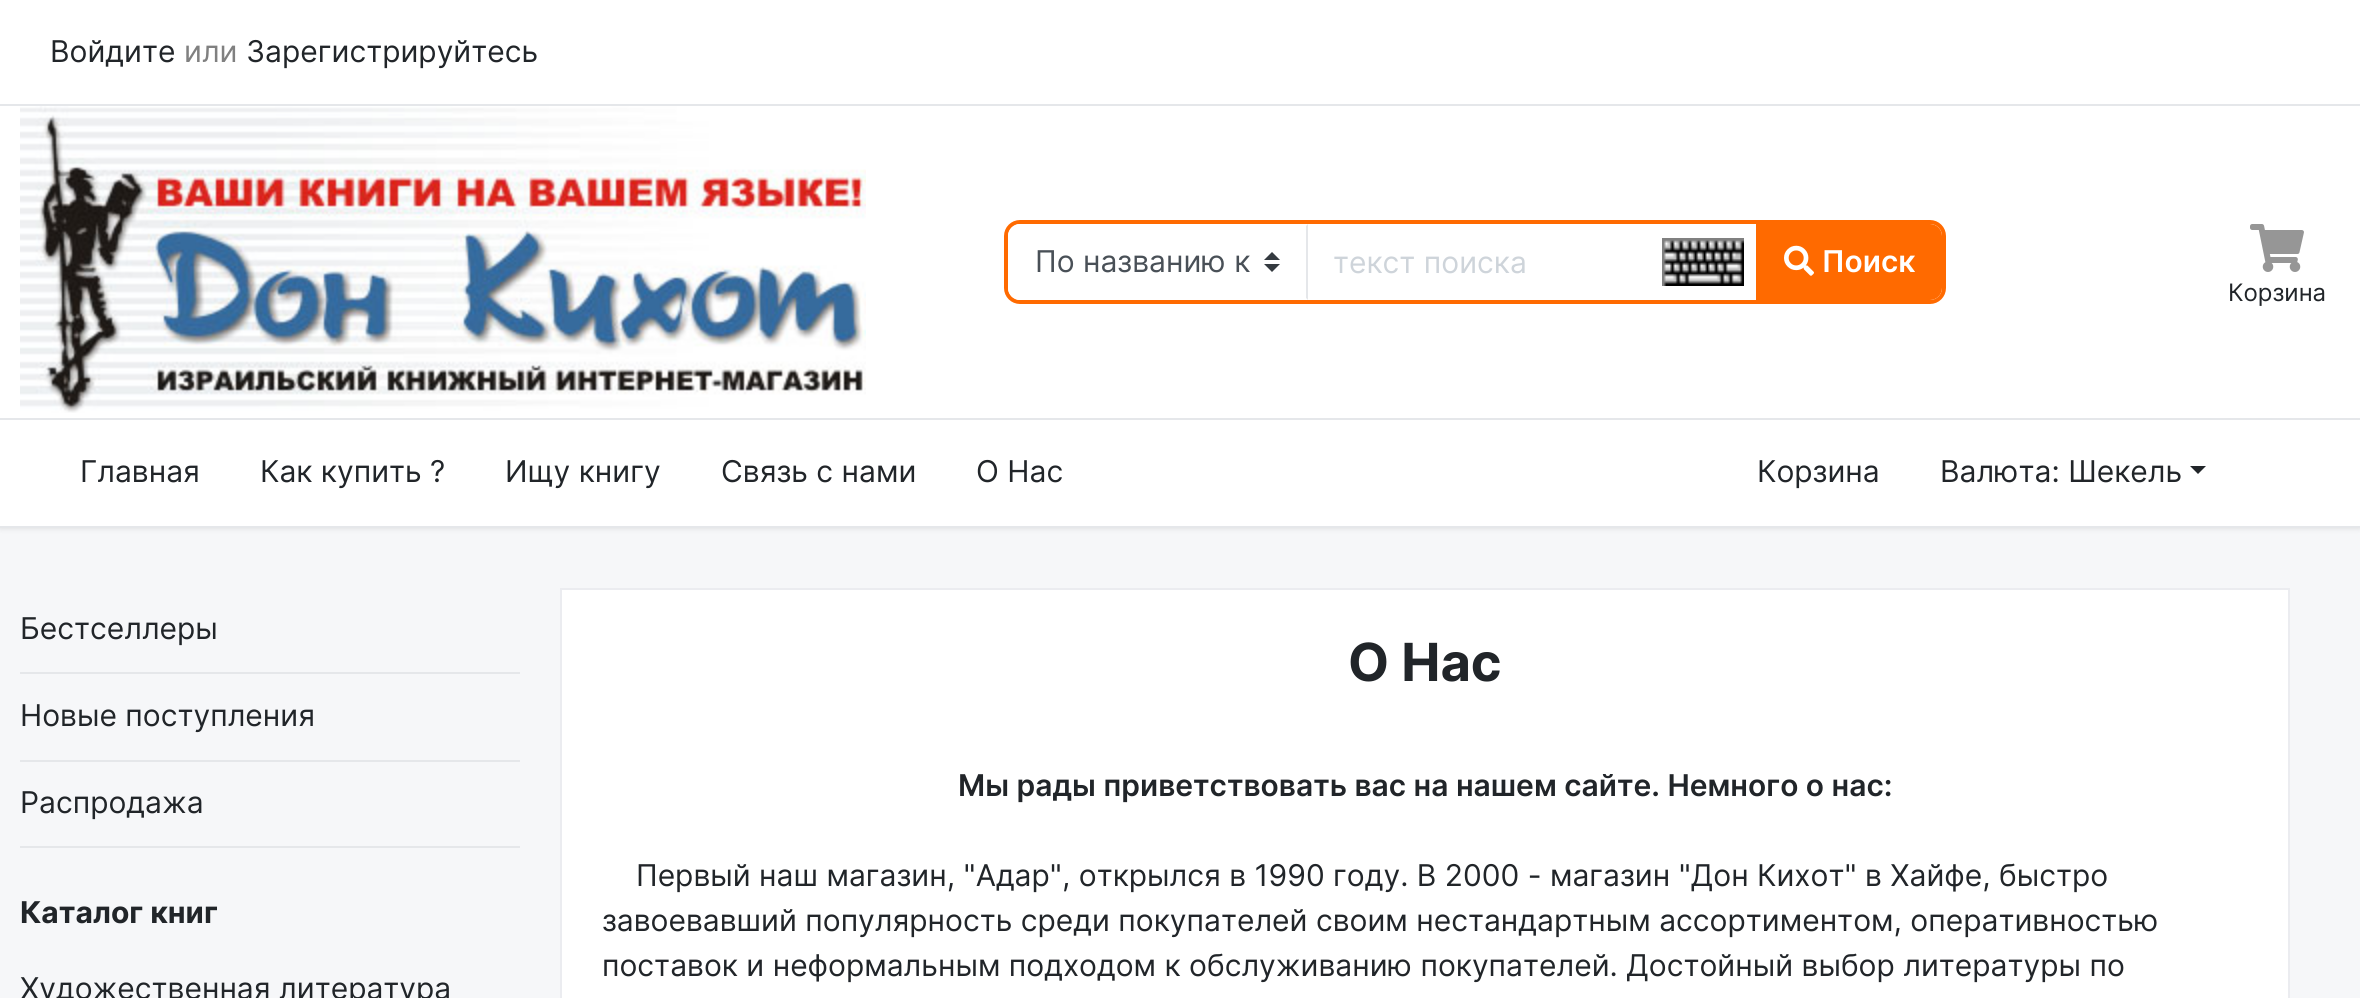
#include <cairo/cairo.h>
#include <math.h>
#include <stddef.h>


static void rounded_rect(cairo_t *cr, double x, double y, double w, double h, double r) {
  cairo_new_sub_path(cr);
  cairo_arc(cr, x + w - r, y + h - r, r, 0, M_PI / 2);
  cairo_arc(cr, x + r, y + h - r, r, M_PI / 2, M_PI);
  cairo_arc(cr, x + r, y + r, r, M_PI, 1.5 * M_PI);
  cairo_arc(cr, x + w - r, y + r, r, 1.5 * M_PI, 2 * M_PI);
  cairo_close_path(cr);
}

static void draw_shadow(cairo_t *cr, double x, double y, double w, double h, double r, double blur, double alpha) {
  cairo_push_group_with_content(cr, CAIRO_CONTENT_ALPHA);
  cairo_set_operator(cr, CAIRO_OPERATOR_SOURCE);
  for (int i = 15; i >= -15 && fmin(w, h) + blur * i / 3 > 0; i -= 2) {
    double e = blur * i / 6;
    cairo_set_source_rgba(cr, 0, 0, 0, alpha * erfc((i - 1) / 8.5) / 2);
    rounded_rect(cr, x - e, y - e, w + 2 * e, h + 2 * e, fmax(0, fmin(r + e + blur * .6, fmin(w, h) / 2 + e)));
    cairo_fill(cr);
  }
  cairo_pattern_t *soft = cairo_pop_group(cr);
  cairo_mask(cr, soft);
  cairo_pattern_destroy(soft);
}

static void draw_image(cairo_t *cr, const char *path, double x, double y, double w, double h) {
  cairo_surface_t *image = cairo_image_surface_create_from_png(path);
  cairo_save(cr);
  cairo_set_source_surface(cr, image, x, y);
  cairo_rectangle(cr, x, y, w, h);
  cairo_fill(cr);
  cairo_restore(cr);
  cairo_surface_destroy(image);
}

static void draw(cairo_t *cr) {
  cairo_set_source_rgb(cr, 246 / 255.0, 247 / 255.0, 249 / 255.0);
  cairo_paint(cr);
  cairo_set_source_rgb(cr, 51 / 255.0, 51 / 255.0, 51 / 255.0);
  draw_shadow(cr, 0, 0, 2360, 528, 0, 3, 0.15);
  cairo_set_source_rgb(cr, 1, 1, 1);
  cairo_rectangle(cr, 0, 0, 2360, 526);
  cairo_fill(cr);
  cairo_set_source_rgb(cr, 229 / 255.0, 231 / 255.0, 234 / 255.0);
  cairo_rectangle(cr, 0, 104, 2360, 2);
  cairo_fill(cr);
  cairo_rectangle(cr, 0, 418, 2360, 2);
  cairo_fill(cr);
  draw_image(cr, "images/1.png", 20, 106, 846, 307);
  rounded_rect(cr, 1006, 222, 938, 80, 14);
  cairo_set_source_rgb(cr, 1, 106 / 255.0, 0);
  cairo_set_line_width(cr, 4);
  cairo_stroke(cr);
  cairo_set_source_rgb(cr, 1, 1, 1);
  cairo_new_path(cr);
  cairo_move_to(cr, 1020, 224);
  cairo_line_to(cr, 1308, 224);
  cairo_line_to(cr, 1308, 300);
  cairo_line_to(cr, 1020, 300);
  cairo_curve_to(cr, 1013.5, 300, 1008, 294.5, 1008, 288);
  cairo_line_to(cr, 1008, 236);
  cairo_curve_to(cr, 1008, 229.5, 1013.5, 224, 1020, 224);
  cairo_close_path(cr);
  cairo_fill(cr);
  cairo_set_source_rgb(cr, 52 / 255.0, 58 / 255.0, 64 / 255.0);
  cairo_new_path(cr);
  cairo_move_to(cr, 1272, 252);
  cairo_line_to(cr, 1264, 260);
  cairo_line_to(cr, 1280, 260);
  cairo_close_path(cr);
  cairo_move_to(cr, 1272, 272);
  cairo_line_to(cr, 1264, 264);
  cairo_line_to(cr, 1280, 264);
  cairo_close_path(cr);
  cairo_fill(cr);
  cairo_set_source_rgb(cr, 229 / 255.0, 231 / 255.0, 234 / 255.0);
  cairo_new_path(cr);
  cairo_move_to(cr, 1308, 224);
  cairo_line_to(cr, 1306, 226);
  cairo_line_to(cr, 1306, 298);
  cairo_line_to(cr, 1308, 300);
  cairo_close_path(cr);
  cairo_fill(cr);
  draw_image(cr, "images/2.png", 1662, 238, 82, 48);
  cairo_set_source_rgb(cr, 1, 106 / 255.0, 0);
  cairo_new_path(cr);
  cairo_move_to(cr, 1757, 225);
  cairo_line_to(cr, 1930, 225);
  cairo_curve_to(cr, 1936, 225, 1941, 230, 1941, 236);
  cairo_line_to(cr, 1941, 288);
  cairo_curve_to(cr, 1941, 294, 1936, 299, 1930, 299);
  cairo_line_to(cr, 1757, 299);
  cairo_close_path(cr);
  cairo_fill_preserve(cr);
  cairo_set_line_width(cr, 2);
  cairo_stroke(cr);
  draw_image(cr, "images/3.png", 1784, 245, 30, 31);
  draw_image(cr, "images/4.png", 2250, 224, 54, 48);
  cairo_set_source_rgb(cr, 229 / 255.0, 231 / 255.0, 234 / 255.0);
  cairo_rectangle(cr, 0, 526, 2360, 2);
  cairo_fill(cr);
  cairo_set_source_rgb(cr, 33 / 255.0, 37 / 255.0, 41 / 255.0);
  cairo_new_path(cr);
  cairo_move_to(cr, 2190, 466);
  cairo_line_to(cr, 2206, 466);
  cairo_line_to(cr, 2198, 474);
  cairo_close_path(cr);
  cairo_fill(cr);
  cairo_set_source_rgb(cr, 229 / 255.0, 231 / 255.0, 234 / 255.0);
  cairo_rectangle(cr, 20, 672, 500, 2);
  cairo_fill(cr);
  cairo_rectangle(cr, 20, 760, 500, 2);
  cairo_fill(cr);
  cairo_rectangle(cr, 20, 846, 500, 2);
  cairo_fill(cr);
  cairo_set_source_rgb(cr, 1, 1, 1);
  cairo_rectangle(cr, 561, 589, 1728, 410);
  cairo_fill_preserve(cr);
  cairo_set_source_rgb(cr, 235 / 255.0, 236 / 255.0, 240 / 255.0);
  cairo_stroke(cr);
  cairo_select_font_face(cr, "Inter", CAIRO_FONT_SLANT_NORMAL, CAIRO_FONT_WEIGHT_NORMAL);
  cairo_set_font_size(cr, 30);
  cairo_set_source_rgb(cr, 33 / 255.0, 37 / 255.0, 41 / 255.0);
  cairo_move_to(cr, 50, 62);
  cairo_show_text(cr, "Войдите");
  cairo_set_source_rgb(cr, 128 / 255.0, 128 / 255.0, 128 / 255.0);
  cairo_move_to(cr, 184, 62);
  cairo_show_text(cr, "или");
  cairo_set_source_rgb(cr, 33 / 255.0, 37 / 255.0, 41 / 255.0);
  cairo_move_to(cr, 246, 62);
  cairo_show_text(cr, "Зарегистрируйтесь");
  cairo_set_source_rgb(cr, 73 / 255.0, 80 / 255.0, 87 / 255.0);
  cairo_move_to(cr, 1035, 272);
  cairo_show_text(cr, "По названию к");
  cairo_set_source_rgb(cr, 206 / 255.0, 212 / 255.0, 218 / 255.0);
  cairo_move_to(cr, 1333, 273);
  cairo_show_text(cr, "текст поиска");
  cairo_select_font_face(cr, "Inter SemiBold", CAIRO_FONT_SLANT_NORMAL, CAIRO_FONT_WEIGHT_NORMAL);
  cairo_set_source_rgb(cr, 1, 1, 1);
  cairo_move_to(cr, 1822, 272);
  cairo_show_text(cr, "Поиск");
  cairo_select_font_face(cr, "Inter", CAIRO_FONT_SLANT_NORMAL, CAIRO_FONT_WEIGHT_NORMAL);
  cairo_set_font_size(cr, 24);
  cairo_set_source_rgb(cr, 33 / 255.0, 37 / 255.0, 41 / 255.0);
  cairo_move_to(cr, 2228, 301);
  cairo_show_text(cr, "Корзина");
  cairo_set_font_size(cr, 30);
  cairo_move_to(cr, 80, 482);
  cairo_show_text(cr, "Главная");
  cairo_move_to(cr, 260, 482);
  cairo_show_text(cr, "Как купить ?");
  cairo_move_to(cr, 505, 482);
  cairo_show_text(cr, "Ищу книгу");
  cairo_move_to(cr, 721, 482);
  cairo_show_text(cr, "Связь с нами");
  cairo_move_to(cr, 976, 482);
  cairo_show_text(cr, "О Нас");
  cairo_move_to(cr, 1757, 482);
  cairo_show_text(cr, "Корзина");
  cairo_move_to(cr, 1940, 482);
  cairo_show_text(cr, "Валюта: Шекель");
  cairo_move_to(cr, 20, 639);
  cairo_show_text(cr, "Бестселлеры");
  cairo_move_to(cr, 20, 726);
  cairo_show_text(cr, "Новые поступления");
  cairo_move_to(cr, 20, 813);
  cairo_show_text(cr, "Распродажа");
  cairo_select_font_face(cr, "Inter", CAIRO_FONT_SLANT_NORMAL, CAIRO_FONT_WEIGHT_BOLD);
  cairo_move_to(cr, 20, 923);
  cairo_show_text(cr, "Каталог книг");
  cairo_select_font_face(cr, "Inter", CAIRO_FONT_SLANT_NORMAL, CAIRO_FONT_WEIGHT_NORMAL);
  cairo_move_to(cr, 20, 999);
  cairo_show_text(cr, "Художественная литература");
  cairo_select_font_face(cr, "Inter", CAIRO_FONT_SLANT_NORMAL, CAIRO_FONT_WEIGHT_BOLD);
  cairo_set_font_size(cr, 52.5);
  cairo_move_to(cr, 1348, 681);
  cairo_show_text(cr, "О Нас");
  cairo_select_font_face(cr, "Inter SemiBold", CAIRO_FONT_SLANT_NORMAL, CAIRO_FONT_WEIGHT_NORMAL);
  cairo_set_font_size(cr, 30);
  cairo_move_to(cr, 958, 796);
  cairo_show_text(cr, "Мы рады приветствовать вас на нашем сайте. Немного о нас:");
  cairo_select_font_face(cr, "Inter", CAIRO_FONT_SLANT_NORMAL, CAIRO_FONT_WEIGHT_NORMAL);
  cairo_move_to(cr, 636, 886);
  cairo_show_text(cr, "Первый наш магазин, \"Адар\", открылся в 1990 году. В 2000 - магазин \"Дон Кихот\" в Хайфе, быстро");
  cairo_move_to(cr, 602, 931);
  cairo_show_text(cr, "завоевавший популярность среди покупателей своим нестандартным ассортиментом, оперативностью");
  cairo_move_to(cr, 602, 976);
  cairo_show_text(cr, "поставок и неформальным подходом к обслуживанию покупателей. Достойный выбор литературы по");
}

int main(void) {
  cairo_surface_t *surface = cairo_image_surface_create(CAIRO_FORMAT_RGB24, 2360, 998);
  cairo_t *cr = cairo_create(surface);
  cairo_font_options_t *options = cairo_font_options_create();
  cairo_font_options_set_hint_metrics(options, CAIRO_HINT_METRICS_OFF);
  cairo_font_options_set_hint_style(options, CAIRO_HINT_STYLE_NONE);
  cairo_set_font_options(cr, options);
  cairo_set_miter_limit(cr, 4);
  draw(cr);
  cairo_surface_write_to_png(surface, "out.png");
  cairo_font_options_destroy(options);
  cairo_destroy(cr);
  cairo_surface_destroy(surface);
  return 0;
}
